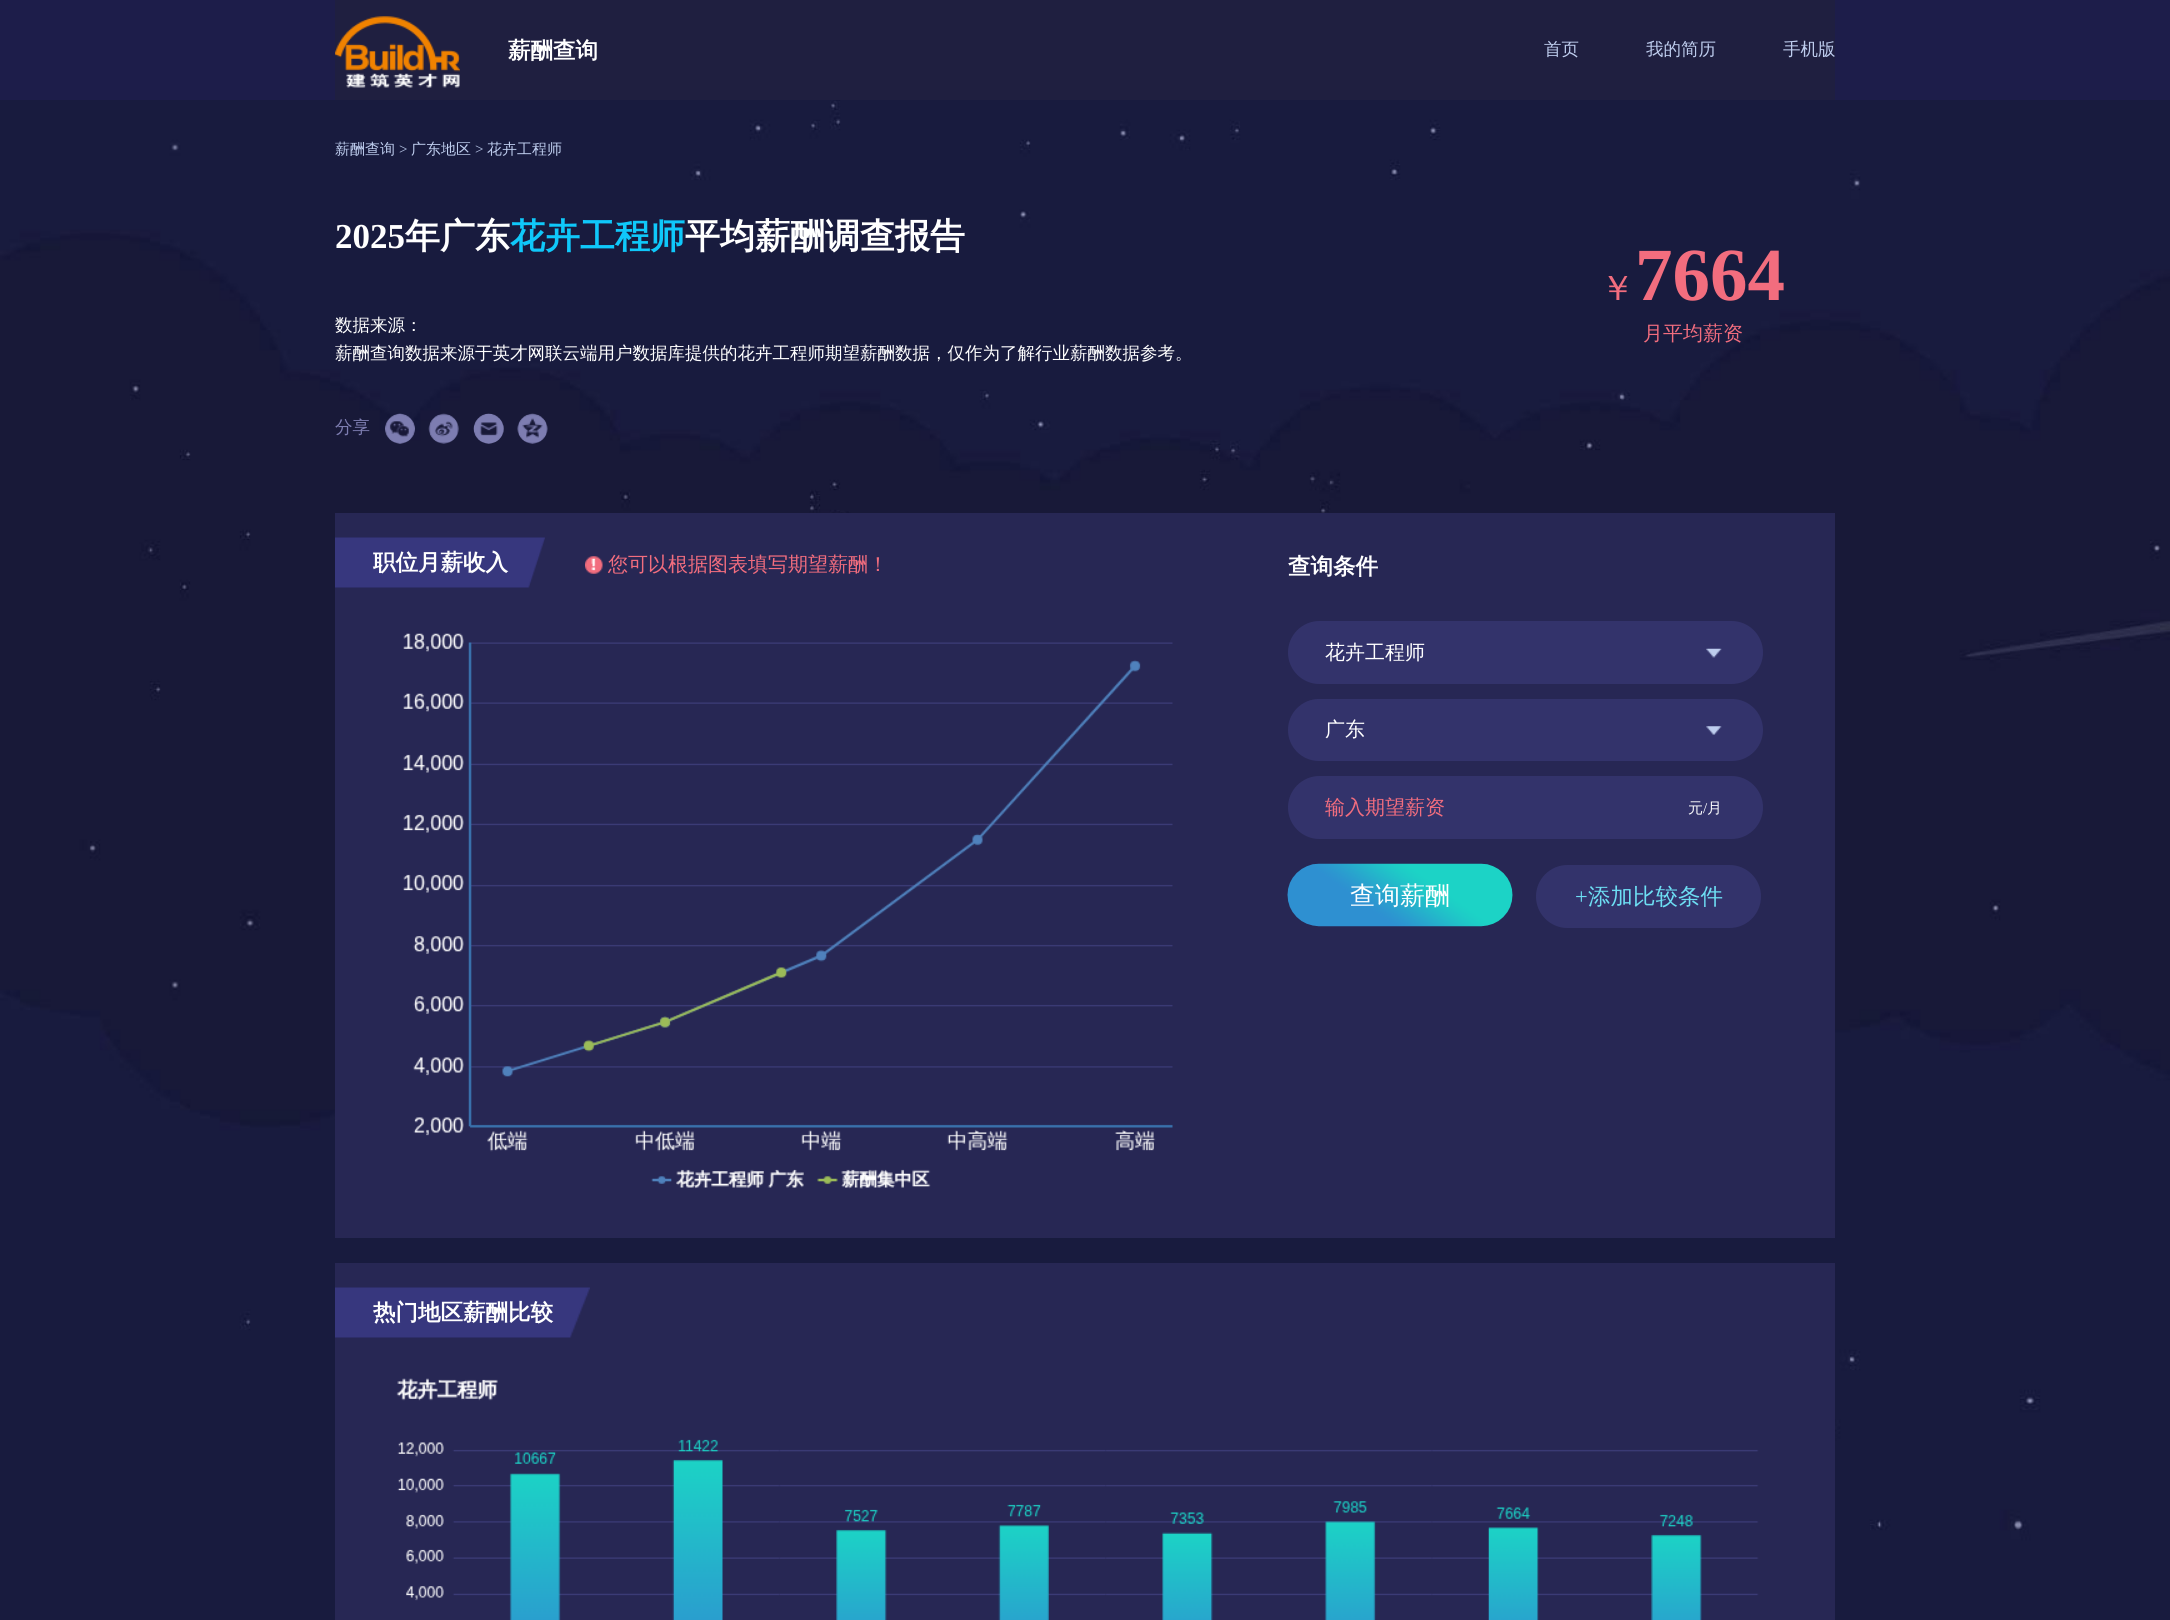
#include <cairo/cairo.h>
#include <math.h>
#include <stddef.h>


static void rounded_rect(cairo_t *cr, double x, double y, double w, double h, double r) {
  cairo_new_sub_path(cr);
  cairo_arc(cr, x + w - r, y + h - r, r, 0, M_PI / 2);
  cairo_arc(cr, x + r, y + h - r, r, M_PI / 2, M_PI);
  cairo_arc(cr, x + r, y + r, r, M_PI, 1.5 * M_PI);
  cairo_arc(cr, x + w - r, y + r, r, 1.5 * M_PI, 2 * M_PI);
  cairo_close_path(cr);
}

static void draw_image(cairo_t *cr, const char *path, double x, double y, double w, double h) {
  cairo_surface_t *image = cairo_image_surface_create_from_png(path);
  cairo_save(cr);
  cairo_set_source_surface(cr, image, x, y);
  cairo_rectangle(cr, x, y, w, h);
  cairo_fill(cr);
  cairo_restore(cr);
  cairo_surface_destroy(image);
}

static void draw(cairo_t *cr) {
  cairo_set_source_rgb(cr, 29 / 255.0, 29 / 255.0, 74 / 255.0);
  cairo_paint(cr);
  draw_image(cr, "images/1.png", 0, 100, 2170, 1520);
  cairo_set_source_rgb(cr, 31 / 255.0, 31 / 255.0, 64 / 255.0);
  cairo_rectangle(cr, 335, 0, 1500, 100);
  cairo_fill(cr);
  draw_image(cr, "images/2.png", 335, 16, 125, 72);
  draw_image(cr, "images/3.png", 385, 413, 30, 31);
  draw_image(cr, "images/4.png", 428, 413, 31, 31);
  draw_image(cr, "images/5.png", 473, 413, 31, 31);
  draw_image(cr, "images/6.png", 517, 413, 31, 31);
  cairo_set_source_rgb(cr, 39 / 255.0, 39 / 255.0, 84 / 255.0);
  cairo_rectangle(cr, 335, 513, 1500, 725);
  cairo_fill(cr);
  draw_image(cr, "images/7.png", 335, 537, 210, 51);
  draw_image(cr, "images/8.png", 585, 556, 18, 18);
  cairo_set_source_rgb(cr, 51 / 255.0, 51 / 255.0, 107 / 255.0);
  rounded_rect(cr, 1288, 621, 475, 63, 31.5);
  cairo_fill(cr);
  draw_image(cr, "images/9.png", 1706, 648, 16, 10);
  rounded_rect(cr, 1288, 699, 475, 62, 31);
  cairo_fill(cr);
  draw_image(cr, "images/10.png", 1706, 726, 16, 9);
  rounded_rect(cr, 1288, 776, 475, 63, 31.5);
  cairo_fill(cr);
  draw_image(cr, "images/11.png", 1287, 863, 226, 64);
  rounded_rect(cr, 1536, 865, 225, 63, 31.5);
  cairo_fill(cr);
  draw_image(cr, "images/12.png", 403, 633, 770, 556);
  cairo_set_source_rgb(cr, 39 / 255.0, 39 / 255.0, 84 / 255.0);
  cairo_rectangle(cr, 335, 1263, 1500, 357);
  cairo_fill(cr);
  draw_image(cr, "images/13.png", 335, 1287, 255, 51);
  draw_image(cr, "images/14.png", 396, 1378, 1363, 242);
  cairo_select_font_face(cr, "WenQuanYi Zen Hei", CAIRO_FONT_SLANT_NORMAL, CAIRO_FONT_WEIGHT_BOLD);
  cairo_set_font_size(cr, 22.5);
  cairo_set_source_rgb(cr, 1, 1, 1);
  cairo_move_to(cr, 508, 58);
  cairo_show_text(cr, "薪酬查询");
  cairo_select_font_face(cr, "WenQuanYi Zen Hei Medium", CAIRO_FONT_SLANT_NORMAL, CAIRO_FONT_WEIGHT_NORMAL);
  cairo_set_font_size(cr, 17.5);
  cairo_set_source_rgb(cr, 190 / 255.0, 205 / 255.0, 238 / 255.0);
  cairo_move_to(cr, 1544, 55);
  cairo_show_text(cr, "首页");
  cairo_move_to(cr, 1646, 55);
  cairo_show_text(cr, "我的简历");
  cairo_move_to(cr, 1783, 55);
  cairo_show_text(cr, "手机版");
  cairo_set_font_size(cr, 15);
  cairo_move_to(cr, 335, 154);
  cairo_show_text(cr, "薪酬查询");
  cairo_select_font_face(cr, "Liberation Serif", CAIRO_FONT_SLANT_NORMAL, CAIRO_FONT_WEIGHT_NORMAL);
  cairo_move_to(cr, 399, 154);
  cairo_show_text(cr, ">");
  cairo_select_font_face(cr, "WenQuanYi Zen Hei Medium", CAIRO_FONT_SLANT_NORMAL, CAIRO_FONT_WEIGHT_NORMAL);
  cairo_move_to(cr, 411, 154);
  cairo_show_text(cr, "广东地区");
  cairo_select_font_face(cr, "Liberation Serif", CAIRO_FONT_SLANT_NORMAL, CAIRO_FONT_WEIGHT_NORMAL);
  cairo_move_to(cr, 475, 154);
  cairo_show_text(cr, ">");
  cairo_select_font_face(cr, "WenQuanYi Zen Hei Medium", CAIRO_FONT_SLANT_NORMAL, CAIRO_FONT_WEIGHT_NORMAL);
  cairo_move_to(cr, 487, 154);
  cairo_show_text(cr, "花卉工程师");
  cairo_select_font_face(cr, "Liberation Serif", CAIRO_FONT_SLANT_NORMAL, CAIRO_FONT_WEIGHT_BOLD);
  cairo_set_font_size(cr, 35);
  cairo_set_source_rgb(cr, 1, 1, 1);
  cairo_move_to(cr, 335, 248);
  cairo_show_text(cr, "2025");
  cairo_select_font_face(cr, "WenQuanYi Zen Hei", CAIRO_FONT_SLANT_NORMAL, CAIRO_FONT_WEIGHT_BOLD);
  cairo_move_to(cr, 405, 248);
  cairo_show_text(cr, "年广东");
  cairo_set_source_rgb(cr, 15 / 255.0, 200 / 255.0, 250 / 255.0);
  cairo_move_to(cr, 510, 248);
  cairo_show_text(cr, "花卉工程师");
  cairo_set_source_rgb(cr, 1, 1, 1);
  cairo_move_to(cr, 685, 248);
  cairo_show_text(cr, "平均薪酬调查报告");
  cairo_select_font_face(cr, "WenQuanYi Zen Hei Medium", CAIRO_FONT_SLANT_NORMAL, CAIRO_FONT_WEIGHT_NORMAL);
  cairo_set_font_size(cr, 17.5);
  cairo_move_to(cr, 335, 331);
  cairo_show_text(cr, "数据来源：");
  cairo_move_to(cr, 335, 359);
  cairo_show_text(cr, "薪酬查询数据来源于英才网联云端用户数据库提供的花卉工程师期望薪酬数据，仅作为了解行业薪酬数据参考。");
  cairo_set_font_size(cr, 35);
  cairo_set_source_rgb(cr, 242 / 255.0, 109 / 255.0, 126 / 255.0);
  cairo_move_to(cr, 1600, 300);
  cairo_show_text(cr, "￥");
  cairo_select_font_face(cr, "Liberation Serif", CAIRO_FONT_SLANT_NORMAL, CAIRO_FONT_WEIGHT_BOLD);
  cairo_set_font_size(cr, 75);
  cairo_move_to(cr, 1635, 300);
  cairo_show_text(cr, "7664");
  cairo_select_font_face(cr, "WenQuanYi Zen Hei Medium", CAIRO_FONT_SLANT_NORMAL, CAIRO_FONT_WEIGHT_NORMAL);
  cairo_set_font_size(cr, 20);
  cairo_move_to(cr, 1643, 340);
  cairo_show_text(cr, "月平均薪资");
  cairo_set_font_size(cr, 17.5);
  cairo_set_source_rgb(cr, 125 / 255.0, 125 / 255.0, 177 / 255.0);
  cairo_move_to(cr, 335, 433);
  cairo_show_text(cr, "分享");
  cairo_select_font_face(cr, "WenQuanYi Zen Hei", CAIRO_FONT_SLANT_NORMAL, CAIRO_FONT_WEIGHT_BOLD);
  cairo_set_font_size(cr, 22.5);
  cairo_set_source_rgb(cr, 1, 1, 1);
  cairo_move_to(cr, 373, 570);
  cairo_show_text(cr, "职位月薪收入");
  cairo_select_font_face(cr, "WenQuanYi Zen Hei Medium", CAIRO_FONT_SLANT_NORMAL, CAIRO_FONT_WEIGHT_NORMAL);
  cairo_set_font_size(cr, 20);
  cairo_set_source_rgb(cr, 242 / 255.0, 109 / 255.0, 126 / 255.0);
  cairo_move_to(cr, 608, 571);
  cairo_show_text(cr, "您可以根据图表填写期望薪酬！");
  cairo_select_font_face(cr, "WenQuanYi Zen Hei", CAIRO_FONT_SLANT_NORMAL, CAIRO_FONT_WEIGHT_BOLD);
  cairo_set_font_size(cr, 22.5);
  cairo_set_source_rgb(cr, 1, 1, 1);
  cairo_move_to(cr, 1288, 574);
  cairo_show_text(cr, "查询条件");
  cairo_select_font_face(cr, "WenQuanYi Zen Hei Medium", CAIRO_FONT_SLANT_NORMAL, CAIRO_FONT_WEIGHT_NORMAL);
  cairo_set_font_size(cr, 20);
  cairo_move_to(cr, 1325, 659);
  cairo_show_text(cr, "花卉工程师");
  cairo_move_to(cr, 1325, 736);
  cairo_show_text(cr, "广东");
  cairo_set_source_rgb(cr, 242 / 255.0, 109 / 255.0, 126 / 255.0);
  cairo_move_to(cr, 1325, 814);
  cairo_show_text(cr, "输入期望薪资");
  cairo_set_font_size(cr, 15);
  cairo_set_source_rgb(cr, 1, 1, 1);
  cairo_move_to(cr, 1688, 813);
  cairo_show_text(cr, "元");
  cairo_select_font_face(cr, "Liberation Serif", CAIRO_FONT_SLANT_NORMAL, CAIRO_FONT_WEIGHT_NORMAL);
  cairo_move_to(cr, 1703, 813);
  cairo_show_text(cr, "/");
  cairo_select_font_face(cr, "WenQuanYi Zen Hei Medium", CAIRO_FONT_SLANT_NORMAL, CAIRO_FONT_WEIGHT_NORMAL);
  cairo_move_to(cr, 1707, 813);
  cairo_show_text(cr, "月");
  cairo_set_font_size(cr, 25);
  cairo_move_to(cr, 1350, 904);
  cairo_show_text(cr, "查询薪酬");
  cairo_select_font_face(cr, "Liberation Serif", CAIRO_FONT_SLANT_NORMAL, CAIRO_FONT_WEIGHT_NORMAL);
  cairo_set_font_size(cr, 22.5);
  cairo_set_source_rgb(cr, 109 / 255.0, 222 / 255.0, 243 / 255.0);
  cairo_move_to(cr, 1575, 904);
  cairo_show_text(cr, "+");
  cairo_select_font_face(cr, "WenQuanYi Zen Hei Medium", CAIRO_FONT_SLANT_NORMAL, CAIRO_FONT_WEIGHT_NORMAL);
  cairo_move_to(cr, 1588, 904);
  cairo_show_text(cr, "添加比较条件");
  cairo_select_font_face(cr, "WenQuanYi Zen Hei", CAIRO_FONT_SLANT_NORMAL, CAIRO_FONT_WEIGHT_BOLD);
  cairo_set_source_rgb(cr, 1, 1, 1);
  cairo_move_to(cr, 373, 1320);
  cairo_show_text(cr, "热门地区薪酬比较");
}

int main(void) {
  cairo_surface_t *surface = cairo_image_surface_create(CAIRO_FORMAT_RGB24, 2170, 1620);
  cairo_t *cr = cairo_create(surface);
  cairo_font_options_t *options = cairo_font_options_create();
  cairo_font_options_set_hint_metrics(options, CAIRO_HINT_METRICS_OFF);
  cairo_font_options_set_hint_style(options, CAIRO_HINT_STYLE_NONE);
  cairo_set_font_options(cr, options);
  cairo_set_miter_limit(cr, 4);
  draw(cr);
  cairo_surface_write_to_png(surface, "out.png");
  cairo_font_options_destroy(options);
  cairo_destroy(cr);
  cairo_surface_destroy(surface);
  return 0;
}
